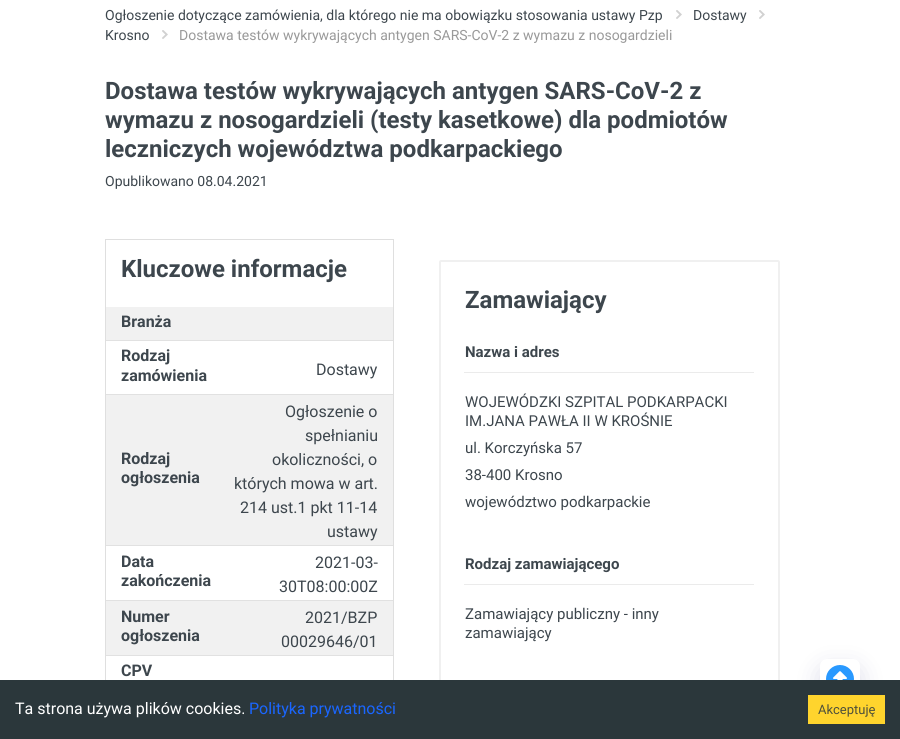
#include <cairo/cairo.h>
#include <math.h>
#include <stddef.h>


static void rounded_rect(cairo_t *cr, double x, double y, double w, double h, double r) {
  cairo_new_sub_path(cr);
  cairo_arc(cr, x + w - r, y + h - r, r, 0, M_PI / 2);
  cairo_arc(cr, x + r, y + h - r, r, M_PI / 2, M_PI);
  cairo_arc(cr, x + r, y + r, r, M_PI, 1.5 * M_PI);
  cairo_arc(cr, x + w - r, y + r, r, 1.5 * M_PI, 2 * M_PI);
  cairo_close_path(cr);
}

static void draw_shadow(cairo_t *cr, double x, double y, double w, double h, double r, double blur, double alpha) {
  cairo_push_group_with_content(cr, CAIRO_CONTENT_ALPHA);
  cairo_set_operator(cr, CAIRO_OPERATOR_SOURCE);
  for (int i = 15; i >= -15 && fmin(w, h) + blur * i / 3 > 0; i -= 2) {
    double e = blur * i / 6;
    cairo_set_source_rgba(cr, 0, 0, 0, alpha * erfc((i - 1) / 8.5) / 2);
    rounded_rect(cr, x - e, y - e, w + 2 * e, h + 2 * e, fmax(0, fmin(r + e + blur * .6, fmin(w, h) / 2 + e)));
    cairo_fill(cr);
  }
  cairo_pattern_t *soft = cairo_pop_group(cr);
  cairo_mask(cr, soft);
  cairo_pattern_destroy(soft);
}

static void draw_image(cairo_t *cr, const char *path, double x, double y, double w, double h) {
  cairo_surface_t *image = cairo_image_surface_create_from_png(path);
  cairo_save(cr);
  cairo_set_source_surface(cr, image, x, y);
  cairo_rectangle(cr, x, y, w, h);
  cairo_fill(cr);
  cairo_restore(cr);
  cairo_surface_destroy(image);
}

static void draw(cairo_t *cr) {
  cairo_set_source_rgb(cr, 1, 1, 1);
  cairo_paint(cr);
  draw_image(cr, "images/1.png", 676, 10, 6, 9);
  draw_image(cr, "images/1.png", 759, 10, 6, 9);
  draw_image(cr, "images/1.png", 162, 30, 6, 9);
  cairo_rectangle(cr, 105.5, 239.5, 288, 485);
  cairo_set_source_rgb(cr, 223 / 255.0, 223 / 255.0, 223 / 255.0);
  cairo_set_line_width(cr, 1);
  cairo_stroke(cr);
  cairo_set_source_rgb(cr, 241 / 255.0, 241 / 255.0, 241 / 255.0);
  cairo_rectangle(cr, 106, 307, 287, 33);
  cairo_fill(cr);
  cairo_set_source_rgb(cr, 225 / 255.0, 225 / 255.0, 225 / 255.0);
  cairo_rectangle(cr, 106, 340, 287, 1);
  cairo_fill(cr);
  cairo_rectangle(cr, 106, 394, 287, 1);
  cairo_fill(cr);
  cairo_set_source_rgb(cr, 241 / 255.0, 241 / 255.0, 241 / 255.0);
  cairo_rectangle(cr, 106, 395, 287, 150);
  cairo_fill(cr);
  cairo_set_source_rgb(cr, 225 / 255.0, 225 / 255.0, 225 / 255.0);
  cairo_rectangle(cr, 106, 545, 287, 1);
  cairo_fill(cr);
  cairo_rectangle(cr, 106, 600, 287, 1);
  cairo_fill(cr);
  cairo_set_source_rgb(cr, 241 / 255.0, 241 / 255.0, 241 / 255.0);
  cairo_rectangle(cr, 106, 601, 287, 54);
  cairo_fill(cr);
  cairo_set_source_rgb(cr, 225 / 255.0, 225 / 255.0, 225 / 255.0);
  cairo_rectangle(cr, 106, 655, 287, 1);
  cairo_fill(cr);
  rounded_rect(cr, 440, 261, 339, 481, 1);
  cairo_set_source_rgb(cr, 240 / 255.0, 240 / 255.0, 240 / 255.0);
  cairo_set_line_width(cr, 2);
  cairo_stroke(cr);
  cairo_set_source_rgb(cr, 235 / 255.0, 235 / 255.0, 235 / 255.0);
  cairo_rectangle(cr, 464, 372, 290, 1);
  cairo_fill(cr);
  cairo_rectangle(cr, 464, 584, 290, 1);
  cairo_fill(cr);
  cairo_set_source_rgb(cr, 132 / 255.0, 128 / 255.0, 177 / 255.0);
  draw_shadow(cr, 820, 668, 40, 40, 7, 12.5, 0.28);
  cairo_set_source_rgb(cr, 1, 1, 1);
  rounded_rect(cr, 820, 659, 40, 40, 7);
  cairo_fill(cr);
  draw_image(cr, "images/2.png", 826, 665, 28, 15);
  cairo_set_source_rgb(cr, 43 / 255.0, 55 / 255.0, 59 / 255.0);
  cairo_rectangle(cr, 0, 680, 900, 59);
  cairo_fill(cr);
  cairo_set_source_rgb(cr, 1, 212 / 255.0, 45 / 255.0);
  cairo_rectangle(cr, 808, 695, 77, 29);
  cairo_fill(cr);
  cairo_select_font_face(cr, "Roboto", CAIRO_FONT_SLANT_NORMAL, CAIRO_FONT_WEIGHT_NORMAL);
  cairo_set_font_size(cr, 14);
  cairo_set_source_rgb(cr, 61 / 255.0, 70 / 255.0, 77 / 255.0);
  cairo_move_to(cr, 105, 20);
  cairo_show_text(cr, "Ogłoszenie dotyczące zamówienia, dla którego nie ma obowiązku stosowania ustawy Pzp");
  cairo_move_to(cr, 693, 20);
  cairo_show_text(cr, "Dostawy");
  cairo_move_to(cr, 105, 40);
  cairo_show_text(cr, "Krosno");
  cairo_set_source_rgb(cr, 153 / 255.0, 153 / 255.0, 153 / 255.0);
  cairo_move_to(cr, 179, 40);
  cairo_show_text(cr, "Dostawa testów wykrywających antygen SARS-CoV-2 z wymazu z nosogardzieli");
  cairo_select_font_face(cr, "Roboto", CAIRO_FONT_SLANT_NORMAL, CAIRO_FONT_WEIGHT_BOLD);
  cairo_set_font_size(cr, 24);
  cairo_set_source_rgb(cr, 61 / 255.0, 70 / 255.0, 77 / 255.0);
  cairo_move_to(cr, 105, 99);
  cairo_show_text(cr, "Dostawa testów wykrywających antygen SARS-CoV-2 z");
  cairo_move_to(cr, 105, 128);
  cairo_show_text(cr, "wymazu z nosogardzieli (testy kasetkowe) dla podmiotów");
  cairo_move_to(cr, 105, 157);
  cairo_show_text(cr, "leczniczych województwa podkarpackiego");
  cairo_select_font_face(cr, "Roboto", CAIRO_FONT_SLANT_NORMAL, CAIRO_FONT_WEIGHT_NORMAL);
  cairo_set_font_size(cr, 14);
  cairo_move_to(cr, 105, 186);
  cairo_show_text(cr, "Opublikowano 08.04.2021");
  cairo_select_font_face(cr, "Roboto", CAIRO_FONT_SLANT_NORMAL, CAIRO_FONT_WEIGHT_BOLD);
  cairo_set_font_size(cr, 24);
  cairo_move_to(cr, 121, 277);
  cairo_show_text(cr, "Kluczowe informacje");
  cairo_set_font_size(cr, 16);
  cairo_move_to(cr, 121, 327);
  cairo_show_text(cr, "Branża");
  cairo_move_to(cr, 121, 361);
  cairo_show_text(cr, "Rodzaj");
  cairo_move_to(cr, 121, 381);
  cairo_show_text(cr, "zamówienia");
  cairo_select_font_face(cr, "Roboto", CAIRO_FONT_SLANT_NORMAL, CAIRO_FONT_WEIGHT_NORMAL);
  cairo_move_to(cr, 316, 375);
  cairo_show_text(cr, "Dostawy");
  cairo_select_font_face(cr, "Roboto", CAIRO_FONT_SLANT_NORMAL, CAIRO_FONT_WEIGHT_BOLD);
  cairo_move_to(cr, 121, 464);
  cairo_show_text(cr, "Rodzaj");
  cairo_move_to(cr, 121, 483);
  cairo_show_text(cr, "ogłoszenia");
  cairo_select_font_face(cr, "Roboto", CAIRO_FONT_SLANT_NORMAL, CAIRO_FONT_WEIGHT_NORMAL);
  cairo_move_to(cr, 285, 417);
  cairo_show_text(cr, "Ogłoszenie o");
  cairo_move_to(cr, 305, 441);
  cairo_show_text(cr, "spełnianiu");
  cairo_move_to(cr, 272, 465);
  cairo_show_text(cr, "okoliczności, o");
  cairo_move_to(cr, 234, 489);
  cairo_show_text(cr, "których mowa w art.");
  cairo_move_to(cr, 240, 513);
  cairo_show_text(cr, "214 ust.1 pkt 11-14");
  cairo_move_to(cr, 327, 537);
  cairo_show_text(cr, "ustawy");
  cairo_select_font_face(cr, "Roboto", CAIRO_FONT_SLANT_NORMAL, CAIRO_FONT_WEIGHT_BOLD);
  cairo_move_to(cr, 121, 567);
  cairo_show_text(cr, "Data");
  cairo_move_to(cr, 121, 586);
  cairo_show_text(cr, "zakończenia");
  cairo_select_font_face(cr, "Roboto", CAIRO_FONT_SLANT_NORMAL, CAIRO_FONT_WEIGHT_NORMAL);
  cairo_move_to(cr, 315, 568);
  cairo_show_text(cr, "2021-03-");
  cairo_move_to(cr, 279, 592);
  cairo_show_text(cr, "30T08:00:00Z");
  cairo_select_font_face(cr, "Roboto", CAIRO_FONT_SLANT_NORMAL, CAIRO_FONT_WEIGHT_BOLD);
  cairo_move_to(cr, 121, 622);
  cairo_show_text(cr, "Numer");
  cairo_move_to(cr, 121, 641);
  cairo_show_text(cr, "ogłoszenia");
  cairo_select_font_face(cr, "Roboto", CAIRO_FONT_SLANT_NORMAL, CAIRO_FONT_WEIGHT_NORMAL);
  cairo_move_to(cr, 305, 623);
  cairo_show_text(cr, "2021/BZP");
  cairo_move_to(cr, 281, 647);
  cairo_show_text(cr, "00029646/01");
  cairo_select_font_face(cr, "Roboto", CAIRO_FONT_SLANT_NORMAL, CAIRO_FONT_WEIGHT_BOLD);
  cairo_move_to(cr, 121, 676);
  cairo_show_text(cr, "CPV");
  cairo_set_font_size(cr, 24);
  cairo_move_to(cr, 465, 308);
  cairo_show_text(cr, "Zamawiający");
  cairo_set_font_size(cr, 15);
  cairo_move_to(cr, 465, 357);
  cairo_show_text(cr, "Nazwa i adres");
  cairo_select_font_face(cr, "Roboto", CAIRO_FONT_SLANT_NORMAL, CAIRO_FONT_WEIGHT_NORMAL);
  cairo_move_to(cr, 465, 407);
  cairo_show_text(cr, "WOJEWÓDZKI SZPITAL PODKARPACKI");
  cairo_move_to(cr, 465, 426);
  cairo_show_text(cr, "IM.JANA PAWŁA II W KROŚNIE");
  cairo_move_to(cr, 465, 453);
  cairo_show_text(cr, "ul. Korczyńska 57");
  cairo_move_to(cr, 465, 480);
  cairo_show_text(cr, "38-400 Krosno");
  cairo_move_to(cr, 465, 507);
  cairo_show_text(cr, "województwo podkarpackie");
  cairo_select_font_face(cr, "Roboto", CAIRO_FONT_SLANT_NORMAL, CAIRO_FONT_WEIGHT_BOLD);
  cairo_move_to(cr, 465, 569);
  cairo_show_text(cr, "Rodzaj zamawiającego");
  cairo_select_font_face(cr, "Roboto", CAIRO_FONT_SLANT_NORMAL, CAIRO_FONT_WEIGHT_NORMAL);
  cairo_move_to(cr, 465, 619);
  cairo_show_text(cr, "Zamawiający publiczny - inny");
  cairo_move_to(cr, 465, 638);
  cairo_show_text(cr, "zamawiający");
  cairo_set_font_size(cr, 16);
  cairo_set_source_rgb(cr, 1, 1, 1);
  cairo_move_to(cr, 15, 714);
  cairo_show_text(cr, "Ta strona używa plików cookies.");
  cairo_set_source_rgb(cr, 26 / 255.0, 102 / 255.0, 1);
  cairo_move_to(cr, 249, 714);
  cairo_show_text(cr, "Polityka prywatności");
  cairo_set_font_size(cr, 13);
  cairo_set_source_rgb(cr, 78 / 255.0, 80 / 255.0, 59 / 255.0);
  cairo_move_to(cr, 818, 714);
  cairo_show_text(cr, "Akceptuję");
}

int main(void) {
  cairo_surface_t *surface = cairo_image_surface_create(CAIRO_FORMAT_RGB24, 900, 739);
  cairo_t *cr = cairo_create(surface);
  cairo_font_options_t *options = cairo_font_options_create();
  cairo_font_options_set_hint_metrics(options, CAIRO_HINT_METRICS_OFF);
  cairo_font_options_set_hint_style(options, CAIRO_HINT_STYLE_NONE);
  cairo_set_font_options(cr, options);
  cairo_set_miter_limit(cr, 4);
  draw(cr);
  cairo_surface_write_to_png(surface, "out.png");
  cairo_font_options_destroy(options);
  cairo_destroy(cr);
  cairo_surface_destroy(surface);
  return 0;
}
